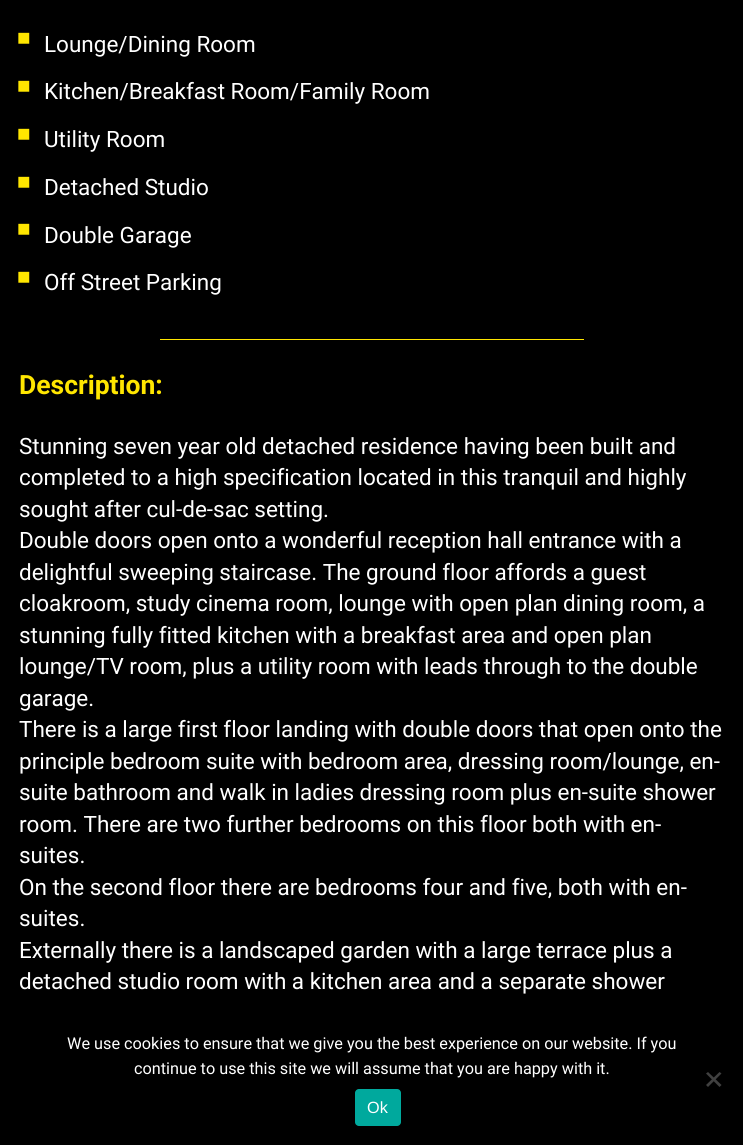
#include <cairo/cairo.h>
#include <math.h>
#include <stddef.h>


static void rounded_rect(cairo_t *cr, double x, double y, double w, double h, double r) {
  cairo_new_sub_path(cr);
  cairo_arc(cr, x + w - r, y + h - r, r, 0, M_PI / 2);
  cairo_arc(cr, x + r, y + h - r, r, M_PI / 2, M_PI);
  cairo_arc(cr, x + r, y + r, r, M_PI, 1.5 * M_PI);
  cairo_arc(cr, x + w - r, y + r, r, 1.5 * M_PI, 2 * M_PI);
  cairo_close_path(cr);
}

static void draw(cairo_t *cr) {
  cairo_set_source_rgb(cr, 0, 0, 0);
  cairo_paint(cr);
  cairo_set_source_rgb(cr, 1, 230 / 255.0, 0);
  cairo_rectangle(cr, 160, 339, 424, 1);
  cairo_fill(cr);
  cairo_set_source_rgb(cr, 64 / 255.0, 64 / 255.0, 64 / 255.0);
  cairo_new_path(cr);
  cairo_move_to(cr, 719.5, 1072);
  cairo_line_to(cr, 721.5, 1073.5);
  cairo_line_to(cr, 708, 1087);
  cairo_line_to(cr, 706, 1085);
  cairo_close_path(cr);
  cairo_fill(cr);
  cairo_new_path(cr);
  cairo_move_to(cr, 706, 1073.5);
  cairo_line_to(cr, 708, 1072);
  cairo_line_to(cr, 721.5, 1085);
  cairo_line_to(cr, 719.5, 1087);
  cairo_close_path(cr);
  cairo_fill(cr);
  cairo_set_source_rgb(cr, 0, 169 / 255.0, 157 / 255.0);
  rounded_rect(cr, 355, 1089, 46, 37, 4);
  cairo_fill(cr);
  cairo_select_font_face(cr, "Liberation Sans", CAIRO_FONT_SLANT_NORMAL, CAIRO_FONT_WEIGHT_NORMAL);
  cairo_set_font_size(cr, 22.5);
  cairo_set_source_rgb(cr, 1, 230 / 255.0, 0);
  cairo_move_to(cr, 17, 45);
  cairo_show_text(cr, "■");
  cairo_select_font_face(cr, "Roboto", CAIRO_FONT_SLANT_NORMAL, CAIRO_FONT_WEIGHT_NORMAL);
  cairo_set_source_rgb(cr, 1, 1, 1);
  cairo_move_to(cr, 44, 52);
  cairo_show_text(cr, "Lounge/Dining Room");
  cairo_select_font_face(cr, "Liberation Sans", CAIRO_FONT_SLANT_NORMAL, CAIRO_FONT_WEIGHT_NORMAL);
  cairo_set_source_rgb(cr, 1, 230 / 255.0, 0);
  cairo_move_to(cr, 17, 93);
  cairo_show_text(cr, "■");
  cairo_select_font_face(cr, "Roboto", CAIRO_FONT_SLANT_NORMAL, CAIRO_FONT_WEIGHT_NORMAL);
  cairo_set_source_rgb(cr, 1, 1, 1);
  cairo_move_to(cr, 44, 99);
  cairo_show_text(cr, "Kitchen/Breakfast Room/Family Room");
  cairo_select_font_face(cr, "Liberation Sans", CAIRO_FONT_SLANT_NORMAL, CAIRO_FONT_WEIGHT_NORMAL);
  cairo_set_source_rgb(cr, 1, 230 / 255.0, 0);
  cairo_move_to(cr, 17, 141);
  cairo_show_text(cr, "■");
  cairo_select_font_face(cr, "Roboto", CAIRO_FONT_SLANT_NORMAL, CAIRO_FONT_WEIGHT_NORMAL);
  cairo_set_source_rgb(cr, 1, 1, 1);
  cairo_move_to(cr, 44, 147);
  cairo_show_text(cr, "Utility Room");
  cairo_select_font_face(cr, "Liberation Sans", CAIRO_FONT_SLANT_NORMAL, CAIRO_FONT_WEIGHT_NORMAL);
  cairo_set_source_rgb(cr, 1, 230 / 255.0, 0);
  cairo_move_to(cr, 17, 189);
  cairo_show_text(cr, "■");
  cairo_select_font_face(cr, "Roboto", CAIRO_FONT_SLANT_NORMAL, CAIRO_FONT_WEIGHT_NORMAL);
  cairo_set_source_rgb(cr, 1, 1, 1);
  cairo_move_to(cr, 44, 195);
  cairo_show_text(cr, "Detached Studio");
  cairo_select_font_face(cr, "Liberation Sans", CAIRO_FONT_SLANT_NORMAL, CAIRO_FONT_WEIGHT_NORMAL);
  cairo_set_source_rgb(cr, 1, 230 / 255.0, 0);
  cairo_move_to(cr, 17, 236);
  cairo_show_text(cr, "■");
  cairo_select_font_face(cr, "Roboto", CAIRO_FONT_SLANT_NORMAL, CAIRO_FONT_WEIGHT_NORMAL);
  cairo_set_source_rgb(cr, 1, 1, 1);
  cairo_move_to(cr, 44, 243);
  cairo_show_text(cr, "Double Garage");
  cairo_select_font_face(cr, "Liberation Sans", CAIRO_FONT_SLANT_NORMAL, CAIRO_FONT_WEIGHT_NORMAL);
  cairo_set_source_rgb(cr, 1, 230 / 255.0, 0);
  cairo_move_to(cr, 17, 284);
  cairo_show_text(cr, "■");
  cairo_select_font_face(cr, "Roboto", CAIRO_FONT_SLANT_NORMAL, CAIRO_FONT_WEIGHT_NORMAL);
  cairo_set_source_rgb(cr, 1, 1, 1);
  cairo_move_to(cr, 44, 290);
  cairo_show_text(cr, "Off Street Parking");
  cairo_select_font_face(cr, "Roboto", CAIRO_FONT_SLANT_NORMAL, CAIRO_FONT_WEIGHT_BOLD);
  cairo_set_font_size(cr, 26.5);
  cairo_set_source_rgb(cr, 1, 230 / 255.0, 0);
  cairo_move_to(cr, 19, 394);
  cairo_show_text(cr, "Description:");
  cairo_select_font_face(cr, "Roboto", CAIRO_FONT_SLANT_NORMAL, CAIRO_FONT_WEIGHT_NORMAL);
  cairo_set_font_size(cr, 22.5);
  cairo_set_source_rgb(cr, 1, 1, 1);
  cairo_move_to(cr, 19, 454);
  cairo_show_text(cr, "Stunning seven year old detached residence having been built and");
  cairo_move_to(cr, 19, 485);
  cairo_show_text(cr, "completed to a high specification located in this tranquil and highly");
  cairo_move_to(cr, 19, 517);
  cairo_show_text(cr, "sought after cul-de-sac setting.");
  cairo_move_to(cr, 19, 548);
  cairo_show_text(cr, "Double doors open onto a wonderful reception hall entrance with a");
  cairo_move_to(cr, 19, 580);
  cairo_show_text(cr, "delightful sweeping staircase. The ground floor affords a guest");
  cairo_move_to(cr, 19, 611);
  cairo_show_text(cr, "cloakroom, study cinema room, lounge with open plan dining room, a");
  cairo_move_to(cr, 19, 643);
  cairo_show_text(cr, "stunning fully fitted kitchen with a breakfast area and open plan");
  cairo_move_to(cr, 19, 674);
  cairo_show_text(cr, "lounge/TV room, plus a utility room with leads through to the double");
  cairo_move_to(cr, 19, 706);
  cairo_show_text(cr, "garage.");
  cairo_move_to(cr, 19, 737);
  cairo_show_text(cr, "There is a large first floor landing with double doors that open onto the");
  cairo_move_to(cr, 19, 769);
  cairo_show_text(cr, "principle bedroom suite with bedroom area, dressing room/lounge, en-");
  cairo_move_to(cr, 19, 800);
  cairo_show_text(cr, "suite bathroom and walk in ladies dressing room plus en-suite shower");
  cairo_move_to(cr, 19, 832);
  cairo_show_text(cr, "room. There are two further bedrooms on this floor both with en-");
  cairo_move_to(cr, 19, 863);
  cairo_show_text(cr, "suites.");
  cairo_move_to(cr, 19, 895);
  cairo_show_text(cr, "On the second floor there are bedrooms four and five, both with en-");
  cairo_move_to(cr, 19, 926);
  cairo_show_text(cr, "suites.");
  cairo_move_to(cr, 19, 958);
  cairo_show_text(cr, "Externally there is a landscaped garden with a large terrace plus a");
  cairo_move_to(cr, 19, 989);
  cairo_show_text(cr, "detached studio room with a kitchen area and a separate shower");
  cairo_set_font_size(cr, 16.25);
  cairo_move_to(cr, 67, 1049);
  cairo_show_text(cr, "We use cookies to ensure that we give you the best experience on our website. If you");
  cairo_move_to(cr, 134, 1074);
  cairo_show_text(cr, "continue to use this site we will assume that you are happy with it.");
  cairo_select_font_face(cr, "Liberation Sans", CAIRO_FONT_SLANT_NORMAL, CAIRO_FONT_WEIGHT_NORMAL);
  cairo_move_to(cr, 367, 1113);
  cairo_show_text(cr, "Ok");
}

int main(void) {
  cairo_surface_t *surface = cairo_image_surface_create(CAIRO_FORMAT_RGB24, 743, 1145);
  cairo_t *cr = cairo_create(surface);
  cairo_font_options_t *options = cairo_font_options_create();
  cairo_font_options_set_hint_metrics(options, CAIRO_HINT_METRICS_OFF);
  cairo_font_options_set_hint_style(options, CAIRO_HINT_STYLE_NONE);
  cairo_set_font_options(cr, options);
  cairo_set_miter_limit(cr, 4);
  draw(cr);
  cairo_surface_write_to_png(surface, "out.png");
  cairo_font_options_destroy(options);
  cairo_destroy(cr);
  cairo_surface_destroy(surface);
  return 0;
}
